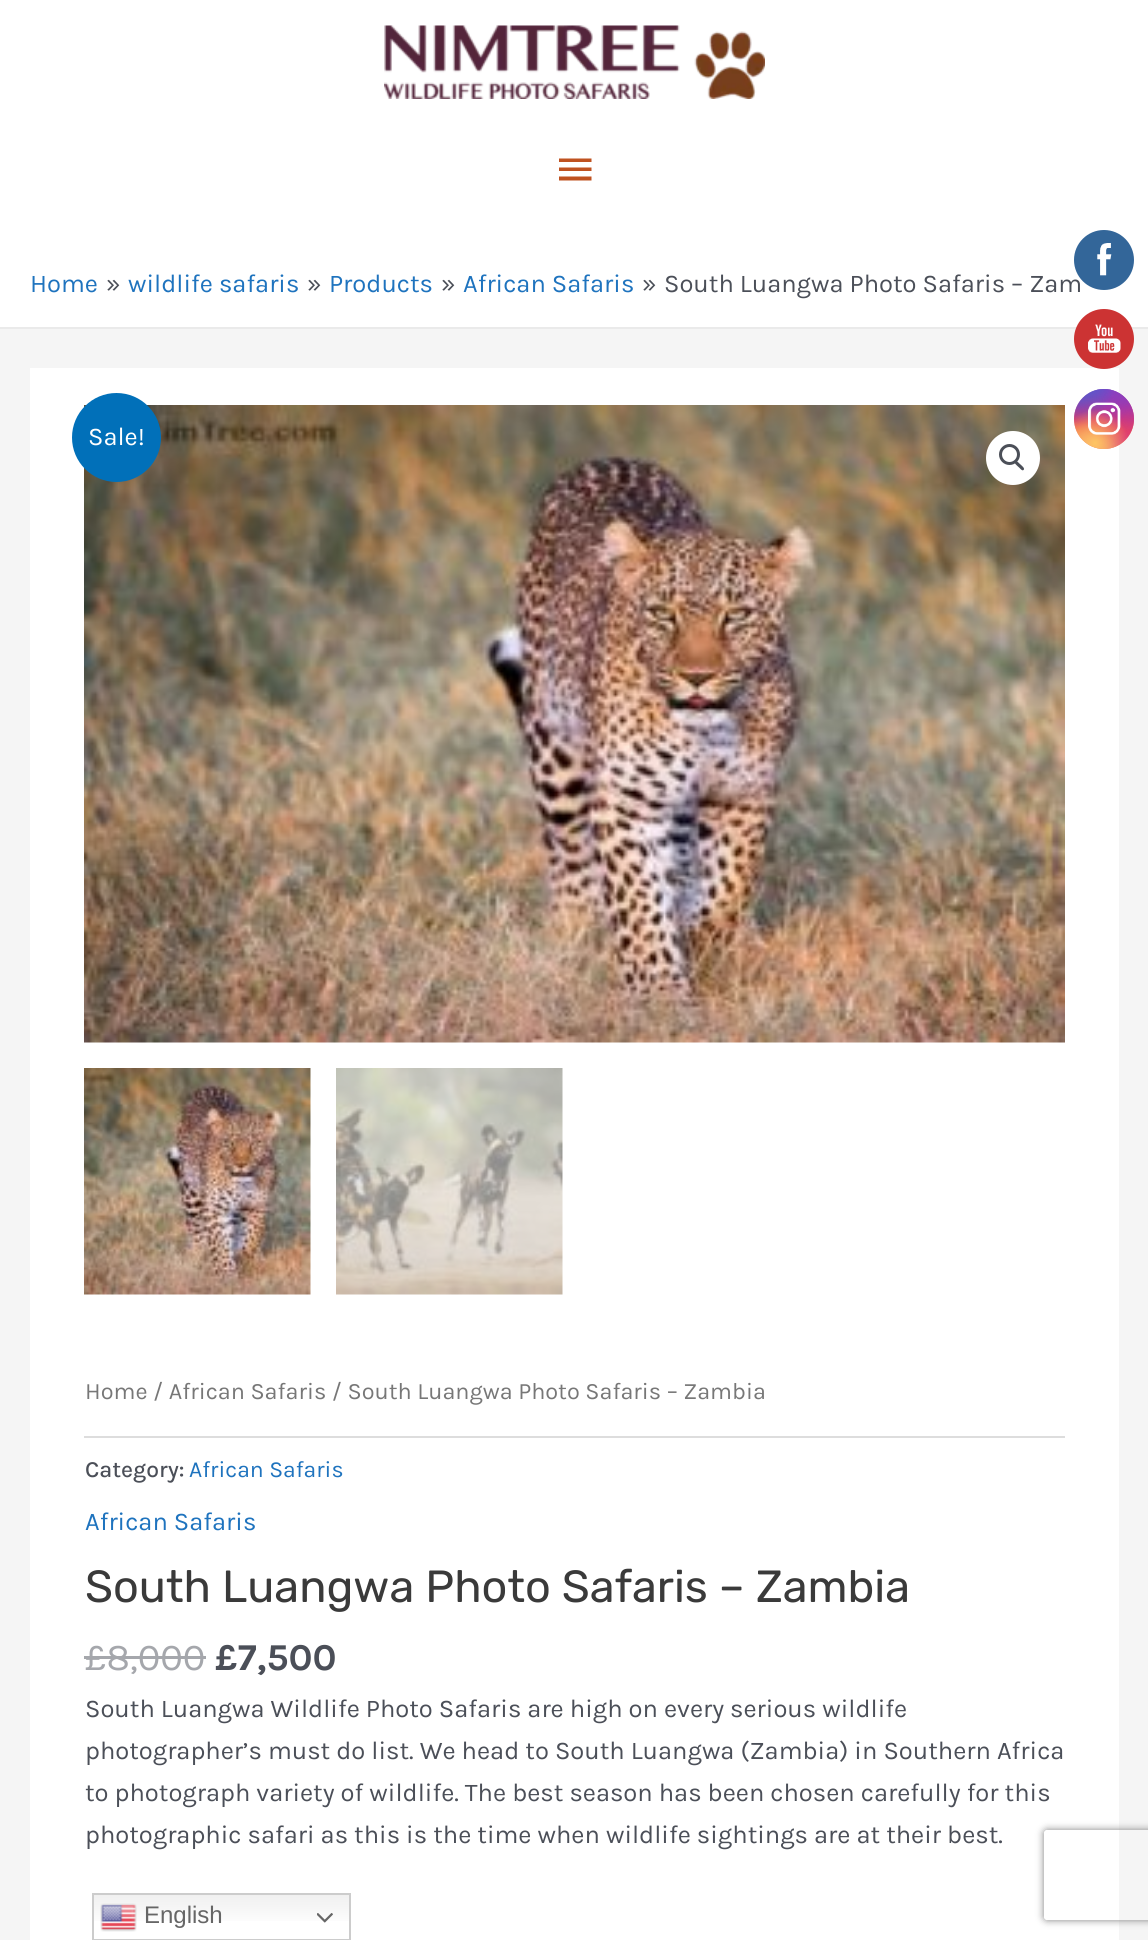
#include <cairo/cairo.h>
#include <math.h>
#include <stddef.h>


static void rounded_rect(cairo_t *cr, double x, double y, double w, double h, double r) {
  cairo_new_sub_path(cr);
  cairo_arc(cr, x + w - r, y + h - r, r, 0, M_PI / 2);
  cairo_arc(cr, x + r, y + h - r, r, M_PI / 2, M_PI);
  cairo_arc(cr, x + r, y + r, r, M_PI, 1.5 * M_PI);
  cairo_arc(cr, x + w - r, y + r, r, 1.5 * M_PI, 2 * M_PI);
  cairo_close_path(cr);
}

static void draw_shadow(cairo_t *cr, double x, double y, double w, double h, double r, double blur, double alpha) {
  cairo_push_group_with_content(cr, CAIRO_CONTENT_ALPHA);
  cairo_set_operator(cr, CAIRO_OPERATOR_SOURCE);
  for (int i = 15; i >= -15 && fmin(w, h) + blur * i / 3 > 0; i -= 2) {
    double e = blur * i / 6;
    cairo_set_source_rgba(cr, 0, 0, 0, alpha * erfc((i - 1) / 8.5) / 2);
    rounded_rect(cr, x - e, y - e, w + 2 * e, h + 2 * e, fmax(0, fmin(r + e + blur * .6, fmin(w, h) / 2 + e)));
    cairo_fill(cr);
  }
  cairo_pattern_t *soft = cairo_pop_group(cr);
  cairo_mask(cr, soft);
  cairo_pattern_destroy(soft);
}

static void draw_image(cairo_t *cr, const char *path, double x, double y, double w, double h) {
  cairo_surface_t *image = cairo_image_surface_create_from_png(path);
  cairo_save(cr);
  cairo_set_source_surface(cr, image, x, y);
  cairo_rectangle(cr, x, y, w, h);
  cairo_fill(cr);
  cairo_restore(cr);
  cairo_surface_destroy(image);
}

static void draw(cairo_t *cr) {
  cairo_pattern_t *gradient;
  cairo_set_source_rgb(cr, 245 / 255.0, 245 / 255.0, 245 / 255.0);
  cairo_paint(cr);
  cairo_set_source_rgb(cr, 1, 1, 1);
  cairo_rectangle(cr, 0, 0, 1148, 327);
  cairo_fill(cr);
  draw_image(cr, "images/1.png", 384, 25, 381, 74);
  cairo_set_source_rgb(cr, 191 / 255.0, 82 / 255.0, 32 / 255.0);
  cairo_new_path(cr);
  cairo_move_to(cr, 559, 158.5);
  cairo_line_to(cr, 591.5, 158.5);
  cairo_line_to(cr, 591.5, 162);
  cairo_line_to(cr, 559, 162);
  cairo_close_path(cr);
  cairo_move_to(cr, 559, 171);
  cairo_line_to(cr, 559, 167.5);
  cairo_line_to(cr, 591.5, 167.5);
  cairo_line_to(cr, 591.5, 171);
  cairo_close_path(cr);
  cairo_move_to(cr, 559, 180.5);
  cairo_line_to(cr, 559, 176.5);
  cairo_line_to(cr, 591.5, 176.5);
  cairo_line_to(cr, 591.5, 180.5);
  cairo_close_path(cr);
  cairo_fill(cr);
  cairo_set_source_rgb(cr, 234 / 255.0, 234 / 255.0, 234 / 255.0);
  cairo_rectangle(cr, 0, 327, 1148, 2);
  cairo_fill(cr);
  cairo_set_source_rgb(cr, 1, 1, 1);
  cairo_rectangle(cr, 30, 368, 1089, 1572);
  cairo_fill(cr);
  draw_image(cr, "images/2.png", 84, 405, 981, 638);
  cairo_arc(cr, 1013, 458, 27, 0, 2 * M_PI);
  cairo_fill(cr);
  cairo_arc(cr, 1009.5, 454.5, 9, 0, 2 * M_PI);
  cairo_set_source_rgb(cr, 75 / 255.0, 79 / 255.0, 88 / 255.0);
  cairo_set_line_width(cr, 3);
  cairo_stroke(cr);
  cairo_new_path(cr);
  cairo_move_to(cr, 1015, 461.5);
  cairo_curve_to(cr, 1017, 460, 1019.5, 464, 1020.5, 464.5);
  cairo_curve_to(cr, 1021.5, 465.5, 1025.5, 468.5, 1023.5, 470);
  cairo_curve_to(cr, 1022, 471.5, 1019.5, 467.5, 1018.5, 467);
  cairo_curve_to(cr, 1017.5, 466, 1013.5, 463, 1015, 461.5);
  cairo_close_path(cr);
  cairo_fill(cr);
  draw_image(cr, "images/3.png", 84, 1068, 227, 227);
  draw_image(cr, "images/4.png", 336, 1068, 227, 227);
  cairo_set_source_rgb(cr, 1 / 255.0, 112 / 255.0, 185 / 255.0);
  cairo_arc(cr, 116.5, 437.5, 44.5, 0, 2 * M_PI);
  cairo_fill(cr);
  cairo_set_source_rgb(cr, 221 / 255.0, 221 / 255.0, 221 / 255.0);
  cairo_rectangle(cr, 84, 1436, 981, 2);
  cairo_fill(cr);
  cairo_set_source_rgb(cr, 165 / 255.0, 167 / 255.0, 172 / 255.0);
  cairo_rectangle(cr, 84, 1656, 122, 3);
  cairo_fill(cr);
  cairo_set_source_rgb(cr, 204 / 255.0, 51 / 255.0, 51 / 255.0);
  cairo_arc(cr, 1104, 339, 30, 0, 2 * M_PI);
  cairo_fill(cr);
  draw_image(cr, "images/6.png", 1088, 324, 33, 29);
  gradient = cairo_pattern_create_linear(1104, 389, 1104, 449);
  cairo_pattern_add_color_stop_rgba(gradient, 0, 101 / 255.0, 89 / 255.0, 202 / 255.0, 1);
  cairo_pattern_add_color_stop_rgba(gradient, 0.3, 188 / 255.0, 49 / 255.0, 143 / 255.0, 1);
  cairo_pattern_add_color_stop_rgba(gradient, 0.5, 227 / 255.0, 63 / 255.0, 95 / 255.0, 1);
  cairo_pattern_add_color_stop_rgba(gradient, 0.7, 247 / 255.0, 118 / 255.0, 56 / 255.0, 1);
  cairo_pattern_add_color_stop_rgba(gradient, 1, 254 / 255.0, 198 / 255.0, 109 / 255.0, 1);
  cairo_set_source(cr, gradient);
  cairo_pattern_destroy(gradient);
  cairo_arc(cr, 1104, 419, 30, 0, 2 * M_PI);
  cairo_fill(cr);
  gradient = cairo_pattern_create_radial(1134, 449, 0, 1134, 449, 85);
  cairo_pattern_add_color_stop_rgba(gradient, 0, 217 / 255.0, 49 / 255.0, 122 / 255.0, 1);
  cairo_pattern_add_color_stop_rgba(gradient, 1, 217 / 255.0, 49 / 255.0, 122 / 255.0, 0);
  cairo_set_source(cr, gradient);
  cairo_pattern_destroy(gradient);
  cairo_arc(cr, 1104, 419, 30, 0, 2 * M_PI);
  cairo_fill(cr);
  gradient = cairo_pattern_create_radial(0, 0, 0, 0, 0, 1);
  cairo_pattern_set_matrix(gradient, &(cairo_matrix_t){1.0 / 51, 0, 0, 1.0 / 102, -1.0 * 1110 / 51, -1.0 * 377 / 102});
  cairo_pattern_add_color_stop_rgba(gradient, 0, 137 / 255.0, 61 / 255.0, 194 / 255.0, 1);
  cairo_pattern_add_color_stop_rgba(gradient, 0.5, 137 / 255.0, 61 / 255.0, 194 / 255.0, 0);
  cairo_set_source(cr, gradient);
  cairo_pattern_destroy(gradient);
  cairo_arc(cr, 1104, 419, 30, 0, 2 * M_PI);
  cairo_fill(cr);
  gradient = cairo_pattern_create_radial(1134, 389, 0, 1134, 389, 85);
  cairo_pattern_add_color_stop_rgba(gradient, 0, 137 / 255.0, 61 / 255.0, 194 / 255.0, 1);
  cairo_pattern_add_color_stop_rgba(gradient, 0.5, 137 / 255.0, 61 / 255.0, 194 / 255.0, 0);
  cairo_set_source(cr, gradient);
  cairo_pattern_destroy(gradient);
  cairo_arc(cr, 1104, 419, 30, 0, 2 * M_PI);
  cairo_fill(cr);
  gradient = cairo_pattern_create_radial(0, 0, 0, 0, 0, 1);
  cairo_pattern_set_matrix(gradient, &(cairo_matrix_t){1.0 / 68, 0, 0, 1.0 / 127, -1.0 * 1086 / 68, -1.0 * 359 / 127});
  cairo_pattern_add_color_stop_rgba(gradient, 0, 82 / 255.0, 88 / 255.0, 207 / 255.0, 1);
  cairo_pattern_add_color_stop_rgba(gradient, 0.5, 82 / 255.0, 88 / 255.0, 207 / 255.0, 0);
  cairo_set_source(cr, gradient);
  cairo_pattern_destroy(gradient);
  cairo_arc(cr, 1104, 419, 30, 0, 2 * M_PI);
  cairo_fill(cr);
  gradient = cairo_pattern_create_radial(0, 0, 0, 0, 0, 1);
  cairo_pattern_set_matrix(gradient, &(cairo_matrix_t){1.0 / 85, 0, 0, 1.0 / 106, -1.0 * 1074 / 85, -1.0 * 374 / 106});
  cairo_pattern_add_color_stop_rgba(gradient, 0, 82 / 255.0, 88 / 255.0, 207 / 255.0, 1);
  cairo_pattern_add_color_stop_rgba(gradient, 0.5, 82 / 255.0, 88 / 255.0, 207 / 255.0, 0);
  cairo_set_source(cr, gradient);
  cairo_pattern_destroy(gradient);
  cairo_arc(cr, 1104, 419, 30, 0, 2 * M_PI);
  cairo_fill(cr);
  gradient = cairo_pattern_create_radial(1074, 473, 0, 1074, 473, 103);
  cairo_pattern_add_color_stop_rgba(gradient, 0, 254 / 255.0, 197 / 255.0, 100 / 255.0, 1);
  cairo_pattern_add_color_stop_rgba(gradient, 0.5, 254 / 255.0, 197 / 255.0, 100 / 255.0, 0);
  cairo_set_source(cr, gradient);
  cairo_pattern_destroy(gradient);
  cairo_arc(cr, 1104, 419, 30, 0, 2 * M_PI);
  cairo_fill(cr);
  gradient = cairo_pattern_create_radial(1095, 443, 0, 1095, 443, 67);
  cairo_pattern_add_color_stop_rgba(gradient, 0, 254 / 255.0, 197 / 255.0, 100 / 255.0, 1);
  cairo_pattern_add_color_stop_rgba(gradient, 0.5, 254 / 255.0, 197 / 255.0, 100 / 255.0, 0);
  cairo_set_source(cr, gradient);
  cairo_pattern_destroy(gradient);
  cairo_arc(cr, 1104, 419, 30, 0, 2 * M_PI);
  cairo_fill(cr);
  draw_image(cr, "images/7.png", 1088, 402, 33, 33);
  gradient = cairo_pattern_create_linear(221, 1893, 221, 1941);
  cairo_pattern_add_color_stop_rgba(gradient, 0, 239 / 255.0, 239 / 255.0, 239 / 255.0, 1);
  cairo_pattern_add_color_stop_rgba(gradient, 0.7, 1, 1, 1, 1);
  cairo_set_source(cr, gradient);
  cairo_pattern_destroy(gradient);
  cairo_rectangle(cr, 94, 1895, 255, 26);
  cairo_fill(cr);
  cairo_rectangle(cr, 93, 1894, 257, 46);
  cairo_set_source_rgb(cr, 204 / 255.0, 204 / 255.0, 204 / 255.0);
  cairo_set_line_width(cr, 2);
  cairo_stroke(cr);
  draw_image(cr, "images/8.png", 100, 1903, 37, 29);
  draw_image(cr, "images/9.png", 317, 1913, 16, 10);
  cairo_save(cr);
  cairo_set_fill_rule(cr, CAIRO_FILL_RULE_EVEN_ODD);
  cairo_new_path(cr);
  cairo_move_to(cr, 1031, 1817);
  cairo_line_to(cr, 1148, 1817);
  cairo_line_to(cr, 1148, 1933);
  cairo_line_to(cr, 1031, 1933);
  cairo_close_path(cr);
  cairo_move_to(cr, 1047, 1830);
  cairo_line_to(cr, 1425, 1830);
  cairo_curve_to(cr, 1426.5, 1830, 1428, 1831.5, 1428, 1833);
  cairo_line_to(cr, 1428, 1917);
  cairo_curve_to(cr, 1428, 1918.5, 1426.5, 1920, 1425, 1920);
  cairo_line_to(cr, 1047, 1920);
  cairo_curve_to(cr, 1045.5, 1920, 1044, 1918.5, 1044, 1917);
  cairo_line_to(cr, 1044, 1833);
  cairo_curve_to(cr, 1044, 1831.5, 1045.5, 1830, 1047, 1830);
  cairo_close_path(cr);
  cairo_clip(cr);
  cairo_set_source_rgb(cr, 128 / 255.0, 128 / 255.0, 128 / 255.0);
  draw_shadow(cr, 1044, 1830, 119, 90, 3, 4, 1);
  cairo_restore(cr);
  cairo_select_font_face(cr, "Karla", CAIRO_FONT_SLANT_NORMAL, CAIRO_FONT_WEIGHT_NORMAL);
  cairo_set_font_size(cr, 25.5);
  cairo_set_source_rgb(cr, 30 / 255.0, 115 / 255.0, 190 / 255.0);
  cairo_move_to(cr, 30, 292);
  cairo_show_text(cr, "Home");
  cairo_set_source_rgb(cr, 75 / 255.0, 79 / 255.0, 88 / 255.0);
  cairo_move_to(cr, 106, 292);
  cairo_show_text(cr, "»");
  cairo_set_source_rgb(cr, 30 / 255.0, 115 / 255.0, 190 / 255.0);
  cairo_move_to(cr, 128, 292);
  cairo_show_text(cr, "wildlife safaris");
  cairo_set_source_rgb(cr, 75 / 255.0, 79 / 255.0, 88 / 255.0);
  cairo_move_to(cr, 307, 292);
  cairo_show_text(cr, "»");
  cairo_set_source_rgb(cr, 30 / 255.0, 115 / 255.0, 190 / 255.0);
  cairo_move_to(cr, 329, 292);
  cairo_show_text(cr, "Products");
  cairo_set_source_rgb(cr, 75 / 255.0, 79 / 255.0, 88 / 255.0);
  cairo_move_to(cr, 441, 292);
  cairo_show_text(cr, "»");
  cairo_set_source_rgb(cr, 30 / 255.0, 115 / 255.0, 190 / 255.0);
  cairo_move_to(cr, 463, 292);
  cairo_show_text(cr, "African Safaris");
  cairo_set_source_rgb(cr, 75 / 255.0, 79 / 255.0, 88 / 255.0);
  cairo_move_to(cr, 642, 292);
  cairo_show_text(cr, "»");
  cairo_move_to(cr, 664, 292);
  cairo_show_text(cr, "South Luangwa Photo Safaris – Zam");
  cairo_set_source_rgb(cr, 1, 1, 1);
  cairo_move_to(cr, 88, 445);
  cairo_show_text(cr, "Sale!");
  cairo_set_font_size(cr, 23.45);
  cairo_set_source_rgb(cr, 119 / 255.0, 119 / 255.0, 119 / 255.0);
  cairo_move_to(cr, 85, 1399);
  cairo_show_text(cr, "Home / African Safaris / South Luangwa Photo Safaris – Zambia");
  cairo_select_font_face(cr, "Karla Medium", CAIRO_FONT_SLANT_NORMAL, CAIRO_FONT_WEIGHT_NORMAL);
  cairo_set_font_size(cr, 23);
  cairo_set_source_rgb(cr, 75 / 255.0, 79 / 255.0, 88 / 255.0);
  cairo_move_to(cr, 85, 1477);
  cairo_show_text(cr, "Category:");
  cairo_select_font_face(cr, "Karla", CAIRO_FONT_SLANT_NORMAL, CAIRO_FONT_WEIGHT_NORMAL);
  cairo_set_source_rgb(cr, 30 / 255.0, 115 / 255.0, 190 / 255.0);
  cairo_move_to(cr, 189, 1477);
  cairo_show_text(cr, "African Safaris");
  cairo_set_font_size(cr, 25.5);
  cairo_move_to(cr, 85, 1530);
  cairo_show_text(cr, "African Safaris");
  cairo_select_font_face(cr, "Rubik", CAIRO_FONT_SLANT_NORMAL, CAIRO_FONT_WEIGHT_NORMAL);
  cairo_set_font_size(cr, 45);
  cairo_set_source_rgb(cr, 58 / 255.0, 58 / 255.0, 58 / 255.0);
  cairo_move_to(cr, 85, 1602);
  cairo_show_text(cr, "South Luangwa Photo Safaris – Zambia");
  cairo_select_font_face(cr, "Karla", CAIRO_FONT_SLANT_NORMAL, CAIRO_FONT_WEIGHT_NORMAL);
  cairo_set_font_size(cr, 38);
  cairo_set_source_rgb(cr, 165 / 255.0, 167 / 255.0, 172 / 255.0);
  cairo_move_to(cr, 85, 1670);
  cairo_show_text(cr, "£8,000");
  cairo_select_font_face(cr, "Karla", CAIRO_FONT_SLANT_NORMAL, CAIRO_FONT_WEIGHT_BOLD);
  cairo_set_source_rgb(cr, 75 / 255.0, 79 / 255.0, 88 / 255.0);
  cairo_move_to(cr, 215, 1670);
  cairo_show_text(cr, "£7,500");
  cairo_select_font_face(cr, "Karla", CAIRO_FONT_SLANT_NORMAL, CAIRO_FONT_WEIGHT_NORMAL);
  cairo_set_font_size(cr, 25.5);
  cairo_move_to(cr, 85, 1717);
  cairo_show_text(cr, "South Luangwa Wildlife Photo Safaris are high on every serious wildlife");
  cairo_move_to(cr, 85, 1759);
  cairo_show_text(cr, "photographer’s must do list. We head to South Luangwa (Zambia) in Southern Africa");
  cairo_move_to(cr, 85, 1801);
  cairo_show_text(cr, "to photograph variety of wildlife. The best season has been chosen carefully for this");
  cairo_move_to(cr, 85, 1843);
  cairo_show_text(cr, "photographic safari as this is the time when wildlife sightings are at their best.");
  cairo_set_source_rgb(cr, 51 / 255.0, 102 / 255.0, 153 / 255.0);
  cairo_new_path(cr);
  cairo_arc(cr, 1104, 260, 30, 0, 2 * M_PI);
  cairo_fill(cr);
  draw_image(cr, "images/5.png", 1097, 243, 15, 33);
  cairo_select_font_face(cr, "Liberation Sans", CAIRO_FONT_SLANT_NORMAL, CAIRO_FONT_WEIGHT_NORMAL);
  cairo_set_font_size(cr, 24);
  cairo_set_source_rgb(cr, 102 / 255.0, 102 / 255.0, 102 / 255.0);
  cairo_move_to(cr, 144, 1923);
  cairo_show_text(cr, "English");
}

int main(void) {
  cairo_surface_t *surface = cairo_image_surface_create(CAIRO_FORMAT_RGB24, 1148, 1940);
  cairo_t *cr = cairo_create(surface);
  cairo_font_options_t *options = cairo_font_options_create();
  cairo_font_options_set_hint_metrics(options, CAIRO_HINT_METRICS_OFF);
  cairo_font_options_set_hint_style(options, CAIRO_HINT_STYLE_NONE);
  cairo_set_font_options(cr, options);
  cairo_set_miter_limit(cr, 4);
  draw(cr);
  cairo_surface_write_to_png(surface, "out.png");
  cairo_font_options_destroy(options);
  cairo_destroy(cr);
  cairo_surface_destroy(surface);
  return 0;
}
